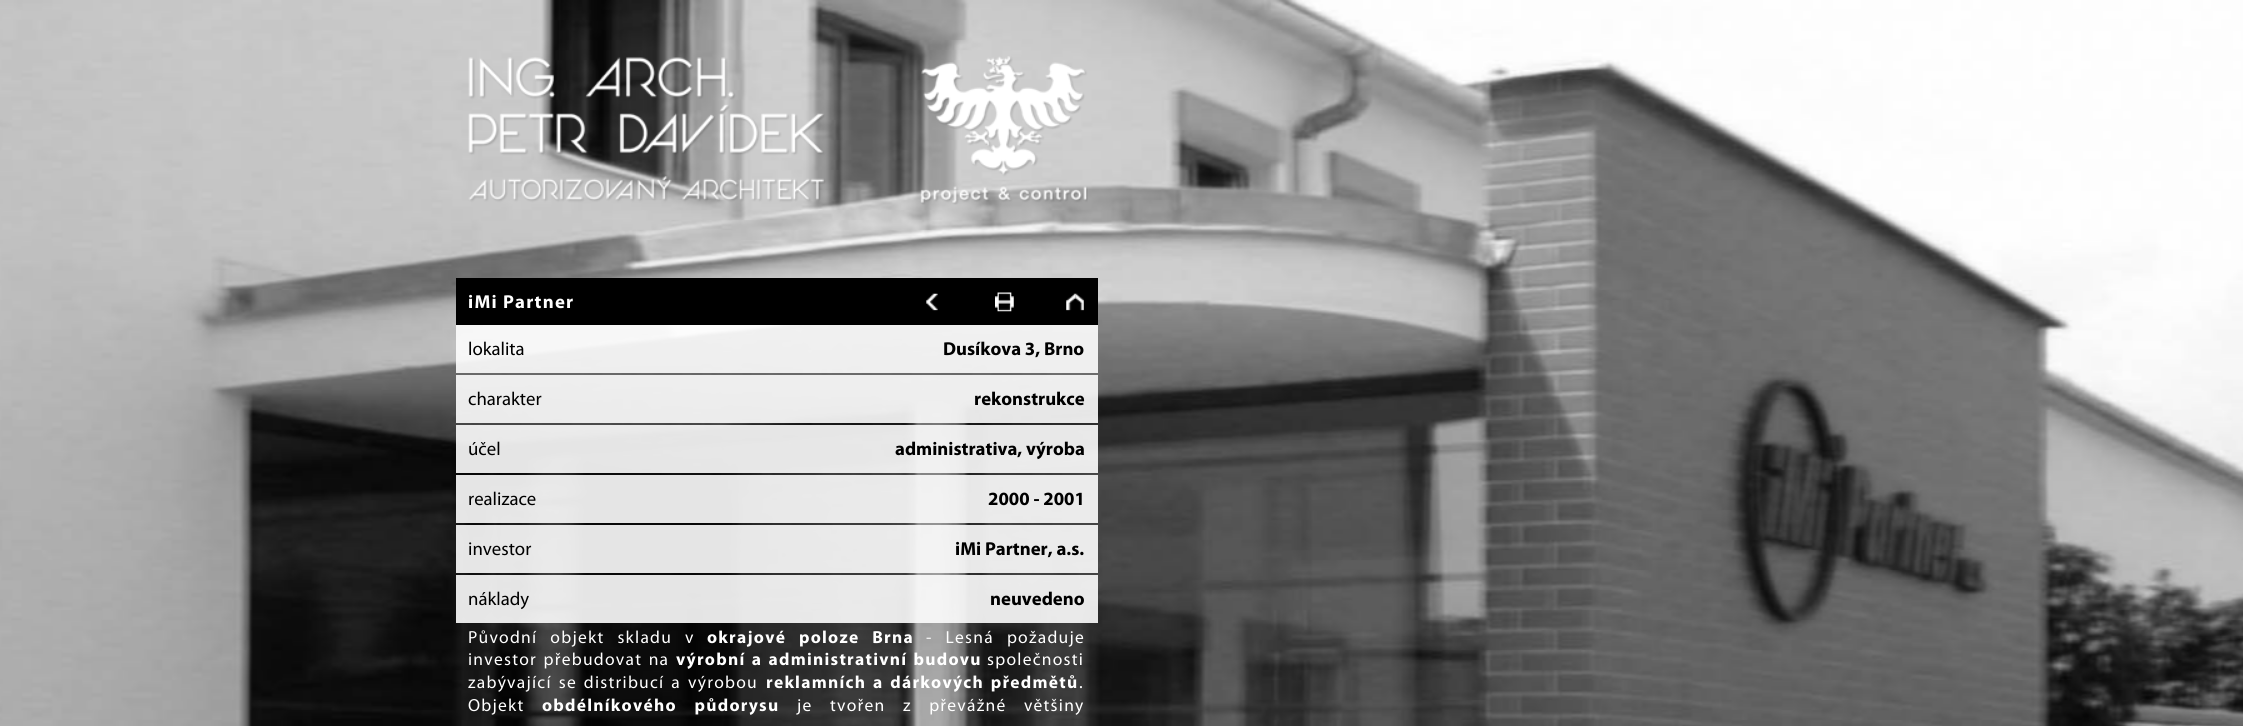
#include <cairo/cairo.h>
#include <math.h>
#include <stddef.h>


static void draw_spaced(cairo_t *cr, double x, double y, const char *s, double letter, double word) {
  cairo_move_to(cr, x, y);
  while (*s) {
    char ch[5] = {0};
    int n = 0;
    do ch[n++] = *s++; while ((*s & 0xC0) == 0x80);
    cairo_show_text(cr, ch);
    cairo_rel_move_to(cr, letter + word * (*ch == ' '), 0);
  }
}

static void draw_image(cairo_t *cr, const char *path, double x, double y, double w, double h) {
  cairo_surface_t *image = cairo_image_surface_create_from_png(path);
  cairo_save(cr);
  cairo_set_source_surface(cr, image, x, y);
  cairo_rectangle(cr, x, y, w, h);
  cairo_fill(cr);
  cairo_restore(cr);
  cairo_surface_destroy(image);
}

static void draw(cairo_t *cr) {
  cairo_set_source_rgb(cr, 1, 1, 1);
  cairo_paint(cr);
  draw_image(cr, "images/1.png", 0, 0, 2243, 726);
  draw_image(cr, "images/2.png", 468, 56, 620, 149);
  cairo_set_source_rgb(cr, 0, 0, 0);
  cairo_rectangle(cr, 456, 278, 642, 47);
  cairo_fill(cr);
  draw_image(cr, "images/3.png", 926, 293, 12, 18);
  draw_image(cr, "images/4.png", 995, 292, 19, 20);
  draw_image(cr, "images/5.png", 1066, 293, 18, 18);
  cairo_set_source_rgba(cr, 253 / 255.0, 253 / 255.0, 253 / 255.0, 0.9);
  cairo_rectangle(cr, 456, 325, 642, 48);
  cairo_fill(cr);
  cairo_rectangle(cr, 456, 375, 642, 48);
  cairo_fill(cr);
  cairo_rectangle(cr, 456, 425, 642, 48);
  cairo_fill(cr);
  cairo_rectangle(cr, 456, 475, 642, 48);
  cairo_fill(cr);
  cairo_rectangle(cr, 456, 525, 642, 48);
  cairo_fill(cr);
  cairo_rectangle(cr, 456, 575, 642, 48);
  cairo_fill(cr);
  cairo_select_font_face(cr, "Myriad", CAIRO_FONT_SLANT_NORMAL, CAIRO_FONT_WEIGHT_BOLD);
  cairo_set_font_size(cr, 18.75);
  cairo_set_source_rgb(cr, 1, 1, 1);
  draw_spaced(cr, 468, 308, "iMi Partner", 1.25, 0);
  cairo_select_font_face(cr, "Myriad", CAIRO_FONT_SLANT_NORMAL, CAIRO_FONT_WEIGHT_NORMAL);
  cairo_set_source_rgb(cr, 0, 0, 0);
  cairo_move_to(cr, 468, 355);
  cairo_show_text(cr, "lokalita");
  cairo_select_font_face(cr, "Myriad", CAIRO_FONT_SLANT_NORMAL, CAIRO_FONT_WEIGHT_BOLD);
  cairo_move_to(cr, 943, 355);
  cairo_show_text(cr, "Dusíkova 3, Brno");
  cairo_select_font_face(cr, "Myriad", CAIRO_FONT_SLANT_NORMAL, CAIRO_FONT_WEIGHT_NORMAL);
  cairo_move_to(cr, 468, 405);
  cairo_show_text(cr, "charakter");
  cairo_select_font_face(cr, "Myriad", CAIRO_FONT_SLANT_NORMAL, CAIRO_FONT_WEIGHT_BOLD);
  cairo_move_to(cr, 974, 405);
  cairo_show_text(cr, "rekonstrukce");
  cairo_select_font_face(cr, "Myriad", CAIRO_FONT_SLANT_NORMAL, CAIRO_FONT_WEIGHT_NORMAL);
  cairo_move_to(cr, 468, 455);
  cairo_show_text(cr, "účel");
  cairo_select_font_face(cr, "Myriad", CAIRO_FONT_SLANT_NORMAL, CAIRO_FONT_WEIGHT_BOLD);
  cairo_move_to(cr, 895, 455);
  cairo_show_text(cr, "administrativa, výroba");
  cairo_select_font_face(cr, "Myriad", CAIRO_FONT_SLANT_NORMAL, CAIRO_FONT_WEIGHT_NORMAL);
  cairo_move_to(cr, 468, 505);
  cairo_show_text(cr, "realizace");
  cairo_select_font_face(cr, "Myriad", CAIRO_FONT_SLANT_NORMAL, CAIRO_FONT_WEIGHT_BOLD);
  cairo_move_to(cr, 988, 505);
  cairo_show_text(cr, "2000 - 2001");
  cairo_select_font_face(cr, "Myriad", CAIRO_FONT_SLANT_NORMAL, CAIRO_FONT_WEIGHT_NORMAL);
  cairo_move_to(cr, 468, 555);
  cairo_show_text(cr, "investor");
  cairo_select_font_face(cr, "Myriad", CAIRO_FONT_SLANT_NORMAL, CAIRO_FONT_WEIGHT_BOLD);
  cairo_move_to(cr, 955, 555);
  cairo_show_text(cr, "iMi Partner, a.s.");
  cairo_select_font_face(cr, "Myriad", CAIRO_FONT_SLANT_NORMAL, CAIRO_FONT_WEIGHT_NORMAL);
  cairo_move_to(cr, 468, 605);
  cairo_show_text(cr, "náklady");
  cairo_select_font_face(cr, "Myriad", CAIRO_FONT_SLANT_NORMAL, CAIRO_FONT_WEIGHT_BOLD);
  cairo_move_to(cr, 990, 605);
  cairo_show_text(cr, "neuvedeno");
  cairo_select_font_face(cr, "Myriad", CAIRO_FONT_SLANT_NORMAL, CAIRO_FONT_WEIGHT_NORMAL);
  cairo_set_font_size(cr, 17.5);
  cairo_set_source_rgb(cr, 1, 1, 1);
  draw_spaced(cr, 468, 643, "Původní objekt skladu v", 1.25, 8);
  cairo_select_font_face(cr, "Myriad", CAIRO_FONT_SLANT_NORMAL, CAIRO_FONT_WEIGHT_BOLD);
  draw_spaced(cr, 707, 643, "okrajové poloze Brna", 1.25, 8);
  cairo_select_font_face(cr, "Myriad", CAIRO_FONT_SLANT_NORMAL, CAIRO_FONT_WEIGHT_NORMAL);
  draw_spaced(cr, 926, 643, "- Lesná požaduje", 1.25, 8);
  draw_spaced(cr, 468, 665, "investor přebudovat na", 1.25, 1.5);
  cairo_select_font_face(cr, "Myriad", CAIRO_FONT_SLANT_NORMAL, CAIRO_FONT_WEIGHT_BOLD);
  draw_spaced(cr, 676, 665, "výrobní a administrativní budovu", 1.25, 1.5);
  cairo_select_font_face(cr, "Myriad", CAIRO_FONT_SLANT_NORMAL, CAIRO_FONT_WEIGHT_NORMAL);
  draw_spaced(cr, 987, 665, "společnosti", 1.25, 0);
  draw_spaced(cr, 468, 688, "zabývající se distribucí a výrobou", 1.25, 2);
  cairo_select_font_face(cr, "Myriad", CAIRO_FONT_SLANT_NORMAL, CAIRO_FONT_WEIGHT_BOLD);
  draw_spaced(cr, 766, 688, "reklamních a dárkových předmětů", 1.25, 2);
  cairo_select_font_face(cr, "Myriad", CAIRO_FONT_SLANT_NORMAL, CAIRO_FONT_WEIGHT_NORMAL);
  draw_spaced(cr, 1079, 688, ".", 1.25, 0);
  draw_spaced(cr, 468, 711, "Objekt", 1.25, 0);
  cairo_select_font_face(cr, "Myriad", CAIRO_FONT_SLANT_NORMAL, CAIRO_FONT_WEIGHT_BOLD);
  draw_spaced(cr, 542, 711, "obdélníkového půdorysu", 1.25, 13);
  cairo_select_font_face(cr, "Myriad", CAIRO_FONT_SLANT_NORMAL, CAIRO_FONT_WEIGHT_NORMAL);
  draw_spaced(cr, 797, 711, "je tvořen z převážné většiny", 1.25, 12.5);
}

int main(void) {
  cairo_surface_t *surface = cairo_image_surface_create(CAIRO_FORMAT_RGB24, 2243, 726);
  cairo_t *cr = cairo_create(surface);
  cairo_font_options_t *options = cairo_font_options_create();
  cairo_font_options_set_hint_metrics(options, CAIRO_HINT_METRICS_OFF);
  cairo_font_options_set_hint_style(options, CAIRO_HINT_STYLE_NONE);
  cairo_set_font_options(cr, options);
  cairo_set_miter_limit(cr, 4);
  draw(cr);
  cairo_surface_write_to_png(surface, "out.png");
  cairo_font_options_destroy(options);
  cairo_destroy(cr);
  cairo_surface_destroy(surface);
  return 0;
}
